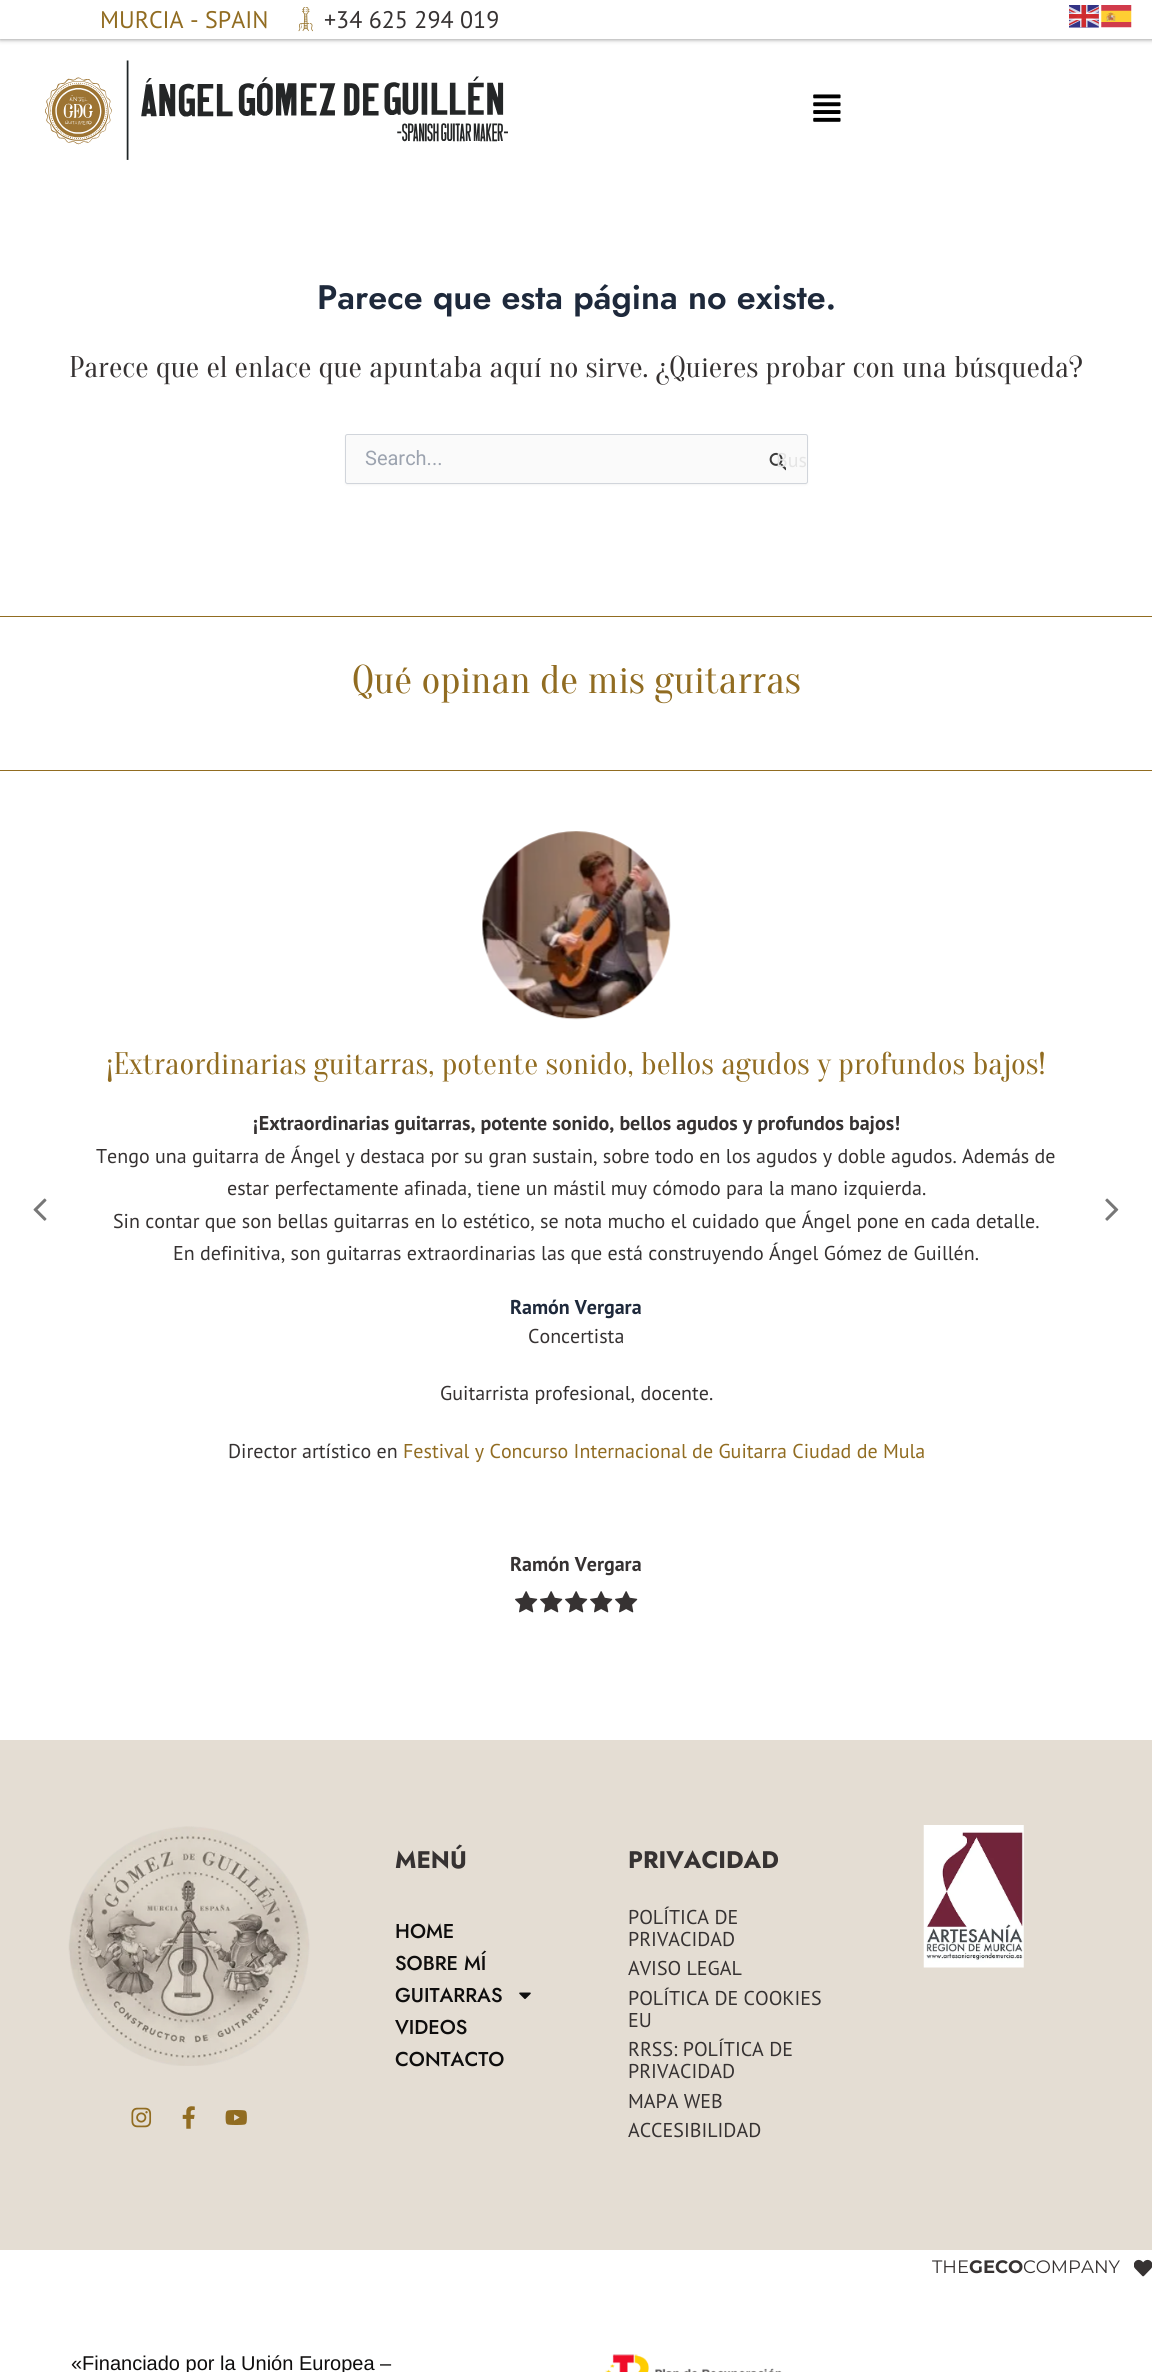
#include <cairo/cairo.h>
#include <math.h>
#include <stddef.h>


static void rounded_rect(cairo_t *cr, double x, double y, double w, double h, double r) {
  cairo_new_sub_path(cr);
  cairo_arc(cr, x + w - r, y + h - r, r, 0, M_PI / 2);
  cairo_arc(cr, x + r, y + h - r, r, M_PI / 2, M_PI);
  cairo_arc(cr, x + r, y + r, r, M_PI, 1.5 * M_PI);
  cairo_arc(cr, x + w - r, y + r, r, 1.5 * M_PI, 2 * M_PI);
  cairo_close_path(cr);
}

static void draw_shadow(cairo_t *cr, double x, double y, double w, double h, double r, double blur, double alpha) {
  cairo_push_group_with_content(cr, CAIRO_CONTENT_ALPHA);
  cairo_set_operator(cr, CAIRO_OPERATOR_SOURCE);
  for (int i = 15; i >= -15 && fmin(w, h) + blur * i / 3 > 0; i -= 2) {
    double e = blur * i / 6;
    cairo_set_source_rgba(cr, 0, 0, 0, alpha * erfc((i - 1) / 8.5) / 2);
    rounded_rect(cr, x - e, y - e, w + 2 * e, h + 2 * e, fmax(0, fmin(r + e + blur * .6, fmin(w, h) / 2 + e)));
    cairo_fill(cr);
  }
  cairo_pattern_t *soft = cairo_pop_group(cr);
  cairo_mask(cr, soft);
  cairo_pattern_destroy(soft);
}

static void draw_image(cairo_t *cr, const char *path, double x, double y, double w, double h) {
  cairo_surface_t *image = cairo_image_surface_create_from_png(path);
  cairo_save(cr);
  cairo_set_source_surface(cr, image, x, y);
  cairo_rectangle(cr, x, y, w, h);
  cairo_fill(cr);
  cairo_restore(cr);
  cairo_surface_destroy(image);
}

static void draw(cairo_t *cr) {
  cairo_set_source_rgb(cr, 1, 1, 1);
  cairo_paint(cr);
  cairo_set_source_rgb(cr, 0, 0, 0);
  draw_shadow(cr, 0, 0, 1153, 39, 0, 2.5, 0.5);
  cairo_set_source_rgb(cr, 1, 1, 1);
  cairo_rectangle(cr, 0, 0, 1152, 39);
  cairo_fill(cr);
  draw_image(cr, "images/1.png", 1069, 5, 30, 23);
  draw_image(cr, "images/2.png", 1101, 5, 31, 23);
  draw_image(cr, "images/3.png", 298, 7, 15, 25);
  draw_image(cr, "images/4.png", 45, 60, 463, 100);
  draw_image(cr, "images/5.png", 813, 94, 28, 28);
  cairo_set_source_rgb(cr, 0, 0, 0);
  draw_shadow(cr, 345, 435, 463, 50, 2.5, 1, 0.05);
  cairo_set_source_rgb(cr, 250 / 255.0, 250 / 255.0, 250 / 255.0);
  rounded_rect(cr, 345.5, 434.5, 462, 49, 2);
  cairo_fill_preserve(cr);
  cairo_set_source_rgb(cr, 209 / 255.0, 213 / 255.0, 219 / 255.0);
  cairo_set_line_width(cr, 1);
  cairo_stroke(cr);
  draw_image(cr, "images/6.png", 769, 452, 17, 19);
  cairo_set_source_rgb(cr, 145 / 255.0, 108 / 255.0, 33 / 255.0);
  cairo_rectangle(cr, 0, 616, 1152, 1);
  cairo_fill(cr);
  cairo_rectangle(cr, 0, 770, 1152, 1);
  cairo_fill(cr);
  draw_image(cr, "images/7.png", 33, 1198, 14, 23);
  draw_image(cr, "images/8.png", 482, 831, 189, 189);
  draw_image(cr, "images/9.png", 515, 1591, 23, 22);
  draw_image(cr, "images/9.png", 540, 1591, 23, 22);
  draw_image(cr, "images/9.png", 565, 1591, 23, 22);
  draw_image(cr, "images/9.png", 590, 1591, 23, 22);
  draw_image(cr, "images/9.png", 615, 1591, 23, 22);
  draw_image(cr, "images/10.png", 1105, 1198, 14, 23);
  cairo_set_source_rgb(cr, 228 / 255.0, 221 / 255.0, 211 / 255.0);
  cairo_rectangle(cr, 0, 1740, 1152, 510);
  cairo_fill(cr);
  draw_image(cr, "images/11.png", 68, 1826, 242, 240);
  draw_image(cr, "images/12.png", 131, 2107, 21, 21);
  draw_image(cr, "images/13.png", 182, 2106, 13, 23);
  draw_image(cr, "images/14.png", 225, 2110, 22, 15);
  draw_image(cr, "images/15.png", 519, 1992, 12, 7);
  draw_image(cr, "images/16.png", 923, 1825, 101, 143);
  draw_image(cr, "images/17.png", 1134, 2259, 18, 18);
  draw_image(cr, "images/18.png", 605, 2354, 177, 18);
  cairo_select_font_face(cr, "PT Sans", CAIRO_FONT_SLANT_NORMAL, CAIRO_FONT_WEIGHT_NORMAL);
  cairo_set_font_size(cr, 24);
  cairo_set_source_rgb(cr, 145 / 255.0, 108 / 255.0, 33 / 255.0);
  cairo_move_to(cr, 100, 28);
  cairo_show_text(cr, "MURCIA - SPAIN");
  cairo_set_source_rgb(cr, 54 / 255.0, 50 / 255.0, 50 / 255.0);
  cairo_move_to(cr, 324, 28);
  cairo_show_text(cr, "+34 625 294 019");
  cairo_select_font_face(cr, "Jost SemiBold", CAIRO_FONT_SLANT_NORMAL, CAIRO_FONT_WEIGHT_NORMAL);
  cairo_set_font_size(cr, 34);
  cairo_set_source_rgb(cr, 30 / 255.0, 41 / 255.0, 59 / 255.0);
  cairo_move_to(cr, 317, 309);
  cairo_show_text(cr, "Parece que esta página no existe.");
  cairo_select_font_face(cr, "Oranienbaum", CAIRO_FONT_SLANT_NORMAL, CAIRO_FONT_WEIGHT_NORMAL);
  cairo_set_font_size(cr, 30);
  cairo_set_source_rgb(cr, 54 / 255.0, 50 / 255.0, 50 / 255.0);
  cairo_move_to(cr, 69, 377);
  cairo_show_text(cr, "Parece que el enlace que apuntaba aquí no sirve. ¿Quieres probar con una búsqueda?");
  cairo_select_font_face(cr, "Roboto", CAIRO_FONT_SLANT_NORMAL, CAIRO_FONT_WEIGHT_NORMAL);
  cairo_set_font_size(cr, 20);
  cairo_set_source_rgb(cr, 156 / 255.0, 163 / 255.0, 175 / 255.0);
  cairo_move_to(cr, 365, 465);
  cairo_show_text(cr, "Search...");
  cairo_select_font_face(cr, "PT Sans", CAIRO_FONT_SLANT_NORMAL, CAIRO_FONT_WEIGHT_NORMAL);
  cairo_set_source_rgb(cr, 229 / 255.0, 229 / 255.0, 229 / 255.0);
  cairo_move_to(cr, 776, 467);
  cairo_show_text(cr, "Bus");
  cairo_select_font_face(cr, "Oranienbaum", CAIRO_FONT_SLANT_NORMAL, CAIRO_FONT_WEIGHT_NORMAL);
  cairo_set_font_size(cr, 40);
  cairo_set_source_rgb(cr, 145 / 255.0, 108 / 255.0, 33 / 255.0);
  cairo_move_to(cr, 352, 693);
  cairo_show_text(cr, "Qué opinan de mis guitarras");
  cairo_set_font_size(cr, 31.25);
  cairo_move_to(cr, 106, 1074);
  cairo_show_text(cr, "¡Extraordinarias guitarras, potente sonido, bellos agudos y profundos bajos!");
  cairo_select_font_face(cr, "PT Sans", CAIRO_FONT_SLANT_NORMAL, CAIRO_FONT_WEIGHT_BOLD);
  cairo_set_font_size(cr, 20);
  cairo_set_source_rgb(cr, 54 / 255.0, 50 / 255.0, 50 / 255.0);
  cairo_move_to(cr, 253, 1130);
  cairo_show_text(cr, "¡Extraordinarias guitarras, potente sonido, bellos agudos y profundos bajos!");
  cairo_select_font_face(cr, "PT Sans", CAIRO_FONT_SLANT_NORMAL, CAIRO_FONT_WEIGHT_NORMAL);
  cairo_move_to(cr, 96, 1163);
  cairo_show_text(cr, "Tengo una guitarra de Ángel y destaca por su gran sustain, sobre todo en los agudos y doble agudos. Además de");
  cairo_move_to(cr, 227, 1195);
  cairo_show_text(cr, "estar perfectamente afinada, tiene un mástil muy cómodo para la mano izquierda.");
  cairo_move_to(cr, 113, 1228);
  cairo_show_text(cr, "Sin contar que son bellas guitarras en lo estético, se nota mucho el cuidado que Ángel pone en cada detalle.");
  cairo_move_to(cr, 173, 1260);
  cairo_show_text(cr, "En definitiva, son guitarras extraordinarias las que está construyendo Ángel Gómez de Guillén.");
  cairo_select_font_face(cr, "PT Sans", CAIRO_FONT_SLANT_NORMAL, CAIRO_FONT_WEIGHT_BOLD);
  cairo_set_source_rgb(cr, 30 / 255.0, 41 / 255.0, 59 / 255.0);
  cairo_move_to(cr, 510, 1314);
  cairo_show_text(cr, "Ramón Vergara");
  cairo_select_font_face(cr, "PT Sans", CAIRO_FONT_SLANT_NORMAL, CAIRO_FONT_WEIGHT_NORMAL);
  cairo_set_source_rgb(cr, 54 / 255.0, 50 / 255.0, 50 / 255.0);
  cairo_move_to(cr, 528, 1343);
  cairo_show_text(cr, "Concertista");
  cairo_move_to(cr, 440, 1400);
  cairo_show_text(cr, "Guitarrista profesional, docente.");
  cairo_move_to(cr, 228, 1458);
  cairo_show_text(cr, "Director artístico en");
  cairo_set_source_rgb(cr, 145 / 255.0, 108 / 255.0, 33 / 255.0);
  cairo_move_to(cr, 403, 1458);
  cairo_show_text(cr, "Festival y Concurso Internacional de Guitarra Ciudad de Mula");
  cairo_select_font_face(cr, "PT Sans", CAIRO_FONT_SLANT_NORMAL, CAIRO_FONT_WEIGHT_BOLD);
  cairo_set_source_rgb(cr, 54 / 255.0, 50 / 255.0, 50 / 255.0);
  cairo_move_to(cr, 510, 1571);
  cairo_show_text(cr, "Ramón Vergara");
  cairo_select_font_face(cr, "Jost", CAIRO_FONT_SLANT_NORMAL, CAIRO_FONT_WEIGHT_BOLD);
  cairo_set_font_size(cr, 24);
  cairo_move_to(cr, 395, 1868);
  cairo_show_text(cr, "MENÚ");
  cairo_select_font_face(cr, "Jost Medium", CAIRO_FONT_SLANT_NORMAL, CAIRO_FONT_WEIGHT_NORMAL);
  cairo_set_font_size(cr, 20);
  cairo_set_source_rgb(cr, 14 / 255.0, 13 / 255.0, 13 / 255.0);
  cairo_move_to(cr, 395, 1938);
  cairo_show_text(cr, "HOME");
  cairo_move_to(cr, 395, 1970);
  cairo_show_text(cr, "SOBRE MÍ");
  cairo_move_to(cr, 395, 2002);
  cairo_show_text(cr, "GUITARRAS");
  cairo_move_to(cr, 395, 2034);
  cairo_show_text(cr, "VIDEOS");
  cairo_move_to(cr, 395, 2066);
  cairo_show_text(cr, "CONTACTO");
  cairo_select_font_face(cr, "Jost", CAIRO_FONT_SLANT_NORMAL, CAIRO_FONT_WEIGHT_BOLD);
  cairo_set_font_size(cr, 24);
  cairo_set_source_rgb(cr, 54 / 255.0, 50 / 255.0, 50 / 255.0);
  cairo_move_to(cr, 628, 1868);
  cairo_show_text(cr, "PRIVACIDAD");
  cairo_select_font_face(cr, "PT Sans", CAIRO_FONT_SLANT_NORMAL, CAIRO_FONT_WEIGHT_NORMAL);
  cairo_set_font_size(cr, 20);
  cairo_move_to(cr, 628, 1924);
  cairo_show_text(cr, "POLÍTICA DE");
  cairo_move_to(cr, 628, 1946);
  cairo_show_text(cr, "PRIVACIDAD");
  cairo_move_to(cr, 628, 1975);
  cairo_show_text(cr, "AVISO LEGAL");
  cairo_move_to(cr, 628, 2005);
  cairo_show_text(cr, "POLÍTICA DE COOKIES");
  cairo_move_to(cr, 628, 2027);
  cairo_show_text(cr, "EU");
  cairo_move_to(cr, 628, 2056);
  cairo_show_text(cr, "RRSS: POLÍTICA DE");
  cairo_move_to(cr, 628, 2078);
  cairo_show_text(cr, "PRIVACIDAD");
  cairo_move_to(cr, 628, 2108);
  cairo_show_text(cr, "MAPA WEB");
  cairo_move_to(cr, 628, 2137);
  cairo_show_text(cr, "ACCESIBILIDAD");
  cairo_select_font_face(cr, "Montserrat", CAIRO_FONT_SLANT_NORMAL, CAIRO_FONT_WEIGHT_NORMAL);
  cairo_set_font_size(cr, 18);
  cairo_move_to(cr, 932, 2273);
  cairo_show_text(cr, "THE");
  cairo_select_font_face(cr, "Montserrat", CAIRO_FONT_SLANT_NORMAL, CAIRO_FONT_WEIGHT_BOLD);
  cairo_move_to(cr, 969, 2273);
  cairo_show_text(cr, "GECO");
  cairo_select_font_face(cr, "Montserrat", CAIRO_FONT_SLANT_NORMAL, CAIRO_FONT_WEIGHT_NORMAL);
  cairo_move_to(cr, 1023, 2273);
  cairo_show_text(cr, "COMPANY");
  cairo_select_font_face(cr, "Liberation Sans", CAIRO_FONT_SLANT_NORMAL, CAIRO_FONT_WEIGHT_NORMAL);
  cairo_set_font_size(cr, 20);
  cairo_set_source_rgb(cr, 14 / 255.0, 13 / 255.0, 13 / 255.0);
  cairo_move_to(cr, 71, 2370);
  cairo_show_text(cr, "«Financiado por la Unión Europea –");
}

int main(void) {
  cairo_surface_t *surface = cairo_image_surface_create(CAIRO_FORMAT_RGB24, 1152, 2372);
  cairo_t *cr = cairo_create(surface);
  cairo_font_options_t *options = cairo_font_options_create();
  cairo_font_options_set_hint_metrics(options, CAIRO_HINT_METRICS_OFF);
  cairo_font_options_set_hint_style(options, CAIRO_HINT_STYLE_NONE);
  cairo_set_font_options(cr, options);
  cairo_set_miter_limit(cr, 4);
  draw(cr);
  cairo_surface_write_to_png(surface, "out.png");
  cairo_font_options_destroy(options);
  cairo_destroy(cr);
  cairo_surface_destroy(surface);
  return 0;
}
